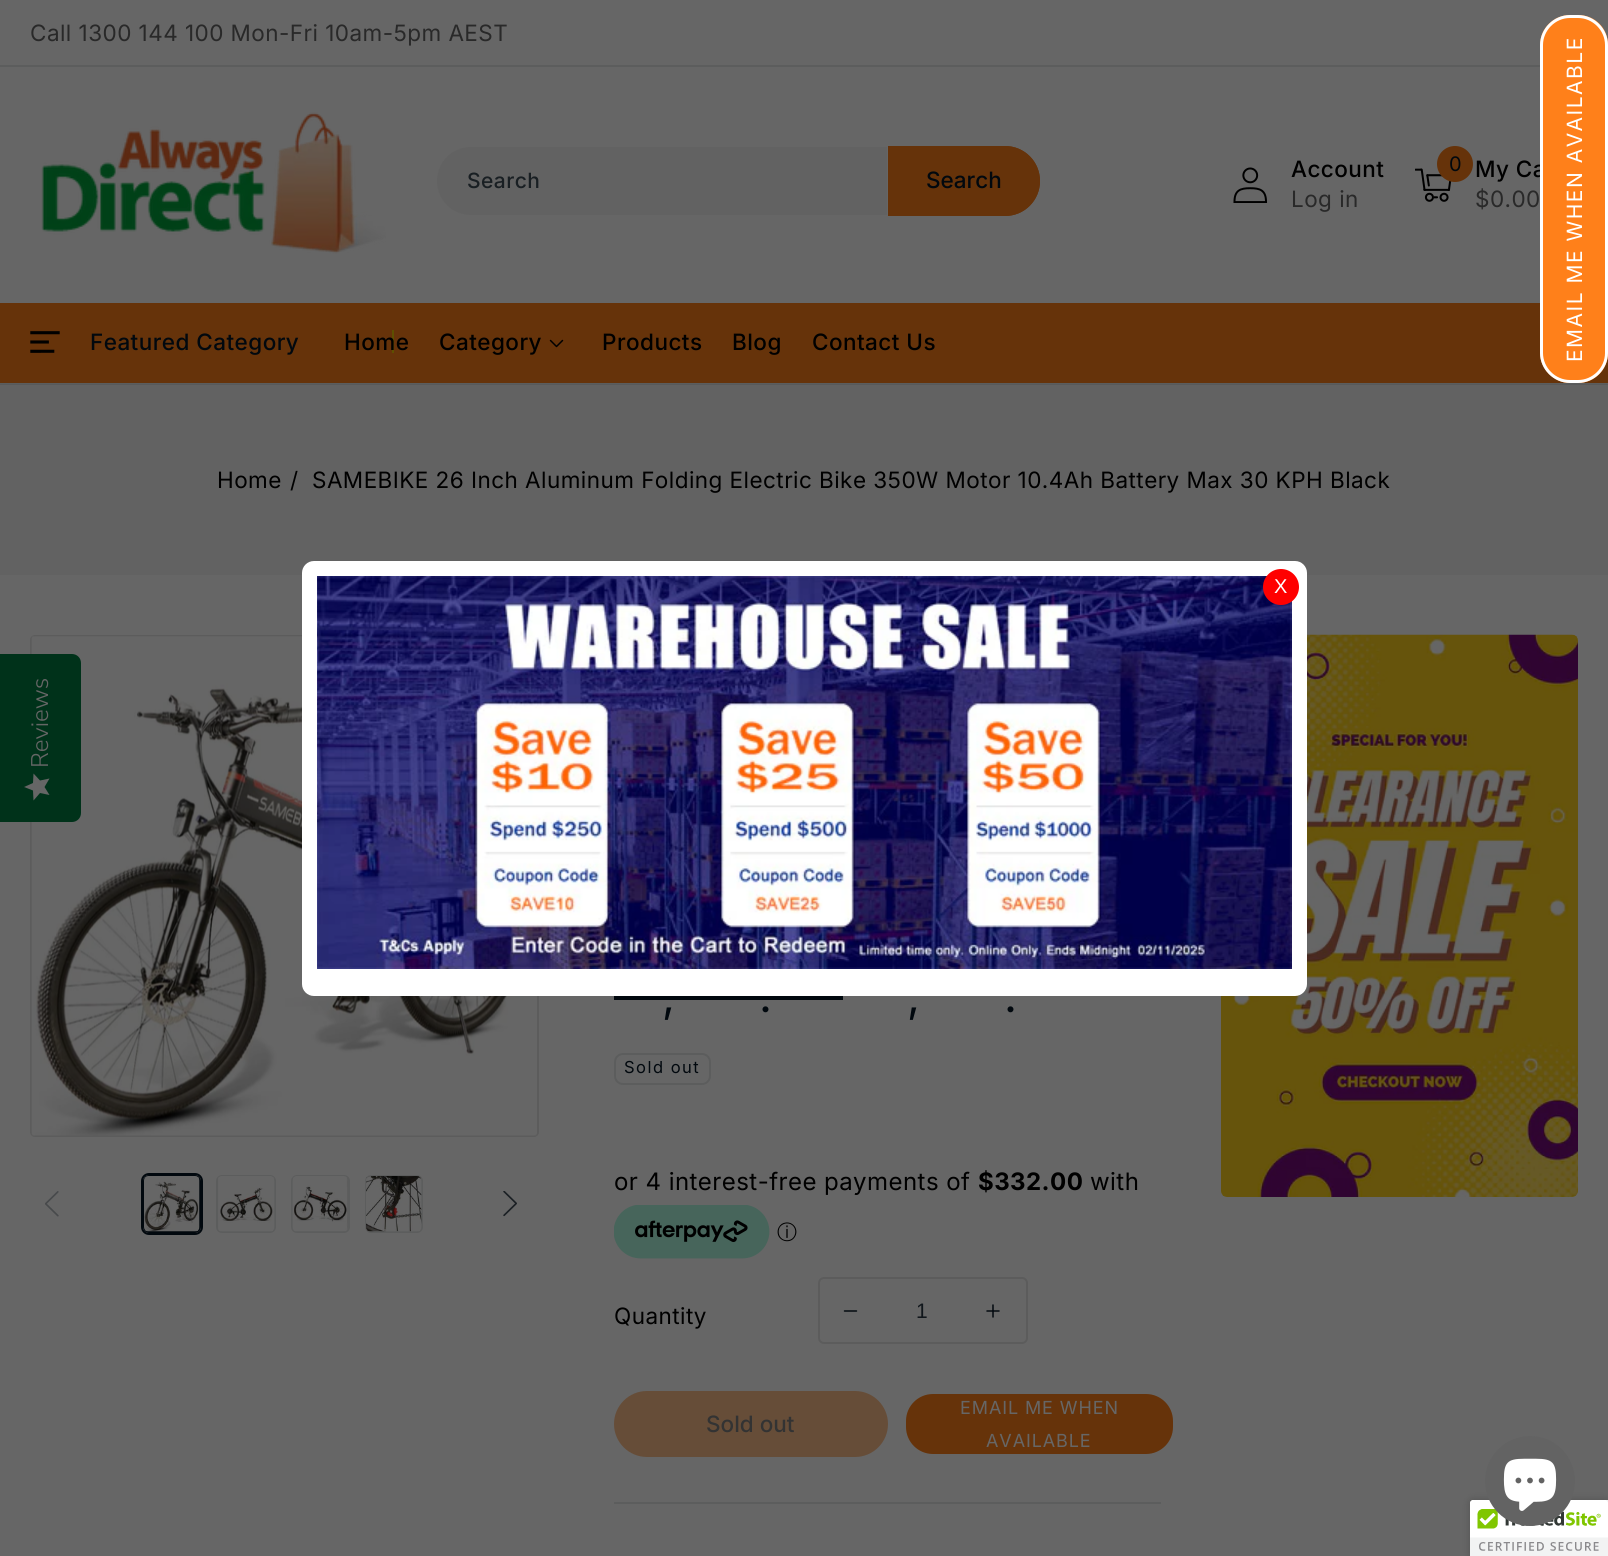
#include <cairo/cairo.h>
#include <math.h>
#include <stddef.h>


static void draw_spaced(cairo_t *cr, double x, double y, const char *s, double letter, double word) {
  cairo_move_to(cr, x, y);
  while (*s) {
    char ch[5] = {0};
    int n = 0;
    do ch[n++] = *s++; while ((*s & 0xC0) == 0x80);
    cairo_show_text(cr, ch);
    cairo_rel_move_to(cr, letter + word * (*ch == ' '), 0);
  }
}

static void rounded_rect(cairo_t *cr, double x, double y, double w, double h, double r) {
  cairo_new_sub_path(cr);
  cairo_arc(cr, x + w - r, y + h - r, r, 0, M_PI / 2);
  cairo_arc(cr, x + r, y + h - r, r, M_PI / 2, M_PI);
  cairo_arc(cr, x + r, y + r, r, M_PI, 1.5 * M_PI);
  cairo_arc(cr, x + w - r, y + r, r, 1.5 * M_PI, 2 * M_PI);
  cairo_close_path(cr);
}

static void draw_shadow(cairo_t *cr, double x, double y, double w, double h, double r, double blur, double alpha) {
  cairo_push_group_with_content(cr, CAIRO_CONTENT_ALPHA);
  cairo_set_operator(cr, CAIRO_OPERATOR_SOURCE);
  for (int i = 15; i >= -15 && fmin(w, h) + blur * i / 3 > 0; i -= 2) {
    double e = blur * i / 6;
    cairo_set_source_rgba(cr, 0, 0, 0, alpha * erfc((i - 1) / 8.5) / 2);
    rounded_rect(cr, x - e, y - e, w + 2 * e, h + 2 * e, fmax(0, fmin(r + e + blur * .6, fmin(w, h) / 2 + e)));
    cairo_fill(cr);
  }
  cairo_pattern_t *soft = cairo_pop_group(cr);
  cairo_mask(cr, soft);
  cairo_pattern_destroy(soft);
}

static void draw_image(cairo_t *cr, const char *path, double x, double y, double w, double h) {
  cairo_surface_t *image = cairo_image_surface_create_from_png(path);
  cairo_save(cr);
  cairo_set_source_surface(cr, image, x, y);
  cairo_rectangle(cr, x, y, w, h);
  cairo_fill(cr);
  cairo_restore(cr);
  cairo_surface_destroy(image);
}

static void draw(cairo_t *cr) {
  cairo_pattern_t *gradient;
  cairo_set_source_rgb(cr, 102 / 255.0, 102 / 255.0, 102 / 255.0);
  cairo_paint(cr);
  cairo_set_source_rgb(cr, 92 / 255.0, 93 / 255.0, 93 / 255.0);
  cairo_rectangle(cr, 0, 383, 1608, 1);
  cairo_fill(cr);
  cairo_rectangle(cr, 0, 65, 1540, 2);
  cairo_fill(cr);
  draw_image(cr, "images/1.png", 41, 112, 345, 142);
  cairo_set_source_rgb(cr, 98 / 255.0, 98 / 255.0, 98 / 255.0);
  cairo_new_path(cr);
  cairo_move_to(cr, 471, 147);
  cairo_line_to(cr, 887, 147);
  cairo_line_to(cr, 887, 215);
  cairo_line_to(cr, 471, 215);
  cairo_curve_to(cr, 452, 215, 437, 200, 437, 181);
  cairo_curve_to(cr, 437, 162, 452, 147, 471, 147);
  cairo_close_path(cr);
  cairo_fill(cr);
  cairo_set_source_rgb(cr, 102 / 255.0, 51 / 255.0, 10 / 255.0);
  cairo_new_path(cr);
  cairo_move_to(cr, 888, 146);
  cairo_line_to(cr, 1005, 146);
  cairo_curve_to(cr, 1024.5, 146, 1040, 161.5, 1040, 181);
  cairo_curve_to(cr, 1040, 200.5, 1024.5, 216, 1005, 216);
  cairo_line_to(cr, 888, 216);
  cairo_close_path(cr);
  cairo_fill(cr);
  rounded_rect(cr, 889, 147, 150, 68, 34);
  cairo_stroke(cr);
  draw_image(cr, "images/2.png", 1233, 167, 35, 36);
  draw_image(cr, "images/3.png", 1415, 168, 37, 34);
  cairo_arc(cr, 1455, 164, 18, 0, 2 * M_PI);
  cairo_fill(cr);
  cairo_rectangle(cr, 0, 303, 1608, 80);
  cairo_fill(cr);
  draw_image(cr, "images/4.png", 30, 331, 30, 22);
  cairo_set_source_rgb(cr, 94 / 255.0, 80 / 255.0, 0);
  cairo_rectangle(cr, 392, 330, 2, 23);
  cairo_fill(cr);
  draw_image(cr, "images/5.png", 549, 339, 15, 9);
  cairo_set_source_rgb(cr, 98 / 255.0, 98 / 255.0, 98 / 255.0);
  cairo_rectangle(cr, 0, 385, 1608, 190);
  cairo_fill(cr);
  cairo_set_source_rgb(cr, 88 / 255.0, 89 / 255.0, 90 / 255.0);
  cairo_rectangle(cr, 0, 384, 1608, 1);
  cairo_fill(cr);
  rounded_rect(cr, 31, 636, 507, 500, 4);
  cairo_set_source_rgb(cr, 92 / 255.0, 92 / 255.0, 92 / 255.0);
  cairo_stroke(cr);
  draw_image(cr, "images/7.png", 31, 636, 506, 500);
  draw_image(cr, "images/17.png", 1221, 634, 357, 563);
  cairo_set_source_rgb(cr, 1, 1, 1);
  rounded_rect(cr, 302, 561, 1005, 435, 12);
  cairo_fill(cr);
  draw_image(cr, "images/6.png", 317, 576, 975, 393);
  cairo_set_source_rgb(cr, 1, 0, 0);
  cairo_arc(cr, 1281, 587, 18, 0, 2 * M_PI);
  cairo_fill(cr);
  cairo_set_source_rgb(cr, 0, 50 / 255.0, 26 / 255.0);
  cairo_new_path(cr);
  cairo_move_to(cr, 0, 822);
  cairo_line_to(cr, 0, 654);
  cairo_line_to(cr, 72, 654);
  cairo_curve_to(cr, 77, 654, 81, 658, 81, 663);
  cairo_line_to(cr, 81, 813);
  cairo_curve_to(cr, 81, 818, 77, 822, 72, 822);
  cairo_close_path(cr);
  cairo_fill(cr);
  gradient = cairo_pattern_create_linear(24, 800, 24, 773);
  cairo_pattern_add_color_stop_rgba(gradient, 1, 102 / 255.0, 102 / 255.0, 102 / 255.0, 1);
  cairo_pattern_add_color_stop_rgba(gradient, 1, 94 / 255.0, 94 / 255.0, 94 / 255.0, 1);
  cairo_set_source(cr, gradient);
  cairo_pattern_destroy(gradient);
  cairo_new_path(cr);
  cairo_move_to(cr, 44.5, 787);
  cairo_line_to(cr, 49.5, 778.5);
  cairo_line_to(cr, 40, 780.5);
  cairo_line_to(cr, 33.5, 773.5);
  cairo_line_to(cr, 33, 783);
  cairo_line_to(cr, 24, 787);
  cairo_line_to(cr, 33, 790.5);
  cairo_line_to(cr, 33.5, 800.5);
  cairo_line_to(cr, 40, 793);
  cairo_line_to(cr, 49.5, 795);
  cairo_close_path(cr);
  cairo_fill(cr);
  draw_image(cr, "images/8.png", 45, 1191, 14, 26);
  rounded_rect(cr, 142, 1174, 60, 60, 7);
  cairo_set_source_rgb(cr, 1 / 255.0, 8 / 255.0, 14 / 255.0);
  cairo_stroke(cr);
  rounded_rect(cr, 144, 1176, 56, 56, 5);
  cairo_stroke(cr);
  draw_image(cr, "images/9.png", 144, 1176, 56, 56);
  rounded_rect(cr, 217, 1176, 58, 56, 5);
  cairo_set_source_rgb(cr, 92 / 255.0, 93 / 255.0, 93 / 255.0);
  cairo_stroke(cr);
  draw_image(cr, "images/10.png", 218, 1176, 57, 56);
  rounded_rect(cr, 292, 1176, 57, 56, 5);
  cairo_stroke(cr);
  draw_image(cr, "images/11.png", 292, 1176, 56, 56);
  rounded_rect(cr, 366, 1176, 56, 56, 5);
  cairo_stroke(cr);
  draw_image(cr, "images/12.png", 366, 1176, 56, 56);
  draw_image(cr, "images/13.png", 503, 1191, 14, 26);
  cairo_set_source_rgb(cr, 1 / 255.0, 8 / 255.0, 14 / 255.0);
  cairo_rectangle(cr, 614, 996, 229, 4);
  cairo_fill(cr);
  rounded_rect(cr, 615, 1054, 95, 30, 8);
  cairo_set_source_rgb(cr, 92 / 255.0, 93 / 255.0, 93 / 255.0);
  cairo_stroke(cr);
  draw_image(cr, "images/14.png", 614, 1205, 156, 54);
  draw_image(cr, "images/15.png", 843, 1310, 15, 2);
  draw_image(cr, "images/16.png", 986, 1304, 14, 14);
  rounded_rect(cr, 819, 1278, 208, 65, 5);
  cairo_set_source_rgb(cr, 92 / 255.0, 92 / 255.0, 92 / 255.0);
  cairo_stroke(cr);
  cairo_set_source_rgb(cr, 102 / 255.0, 77 / 255.0, 56 / 255.0);
  rounded_rect(cr, 614, 1391, 274, 66, 33);
  cairo_fill(cr);
  cairo_set_source_rgb(cr, 102 / 255.0, 51 / 255.0, 10 / 255.0);
  rounded_rect(cr, 904.5, 1392.5, 270, 63, 28.5);
  cairo_fill_preserve(cr);
  cairo_set_source_rgb(cr, 102 / 255.0, 102 / 255.0, 102 / 255.0);
  cairo_set_line_width(cr, 3);
  cairo_stroke(cr);
  cairo_set_source_rgb(cr, 92 / 255.0, 93 / 255.0, 93 / 255.0);
  cairo_rectangle(cr, 614, 1502, 547, 2);
  cairo_fill(cr);
  cairo_set_source_rgb(cr, 0, 0, 0);
  draw_shadow(cr, 1470, 1500, 138, 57, 3, 4, 0.2);
  cairo_set_source_rgb(cr, 1, 1, 1);
  cairo_new_path(cr);
  cairo_move_to(cr, 1473, 1500);
  cairo_line_to(cr, 1608, 1500);
  cairo_line_to(cr, 1608, 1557);
  cairo_line_to(cr, 1470, 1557);
  cairo_line_to(cr, 1470, 1503);
  cairo_curve_to(cr, 1470, 1501.5, 1471.5, 1500, 1473, 1500);
  cairo_close_path(cr);
  cairo_fill(cr);
  draw_image(cr, "images/19.png", 1470, 1500, 138, 56);
  cairo_set_source_rgb(cr, 99 / 255.0, 99 / 255.0, 99 / 255.0);
  cairo_arc(cr, 1530, 1481, 45, 0, 2 * M_PI);
  cairo_fill(cr);
  draw_image(cr, "images/18.png", 1503, 1458, 54, 53);
  cairo_select_font_face(cr, "Inter", CAIRO_FONT_SLANT_NORMAL, CAIRO_FONT_WEIGHT_NORMAL);
  cairo_set_font_size(cr, 22.5);
  cairo_set_source_rgb(cr, 41 / 255.0, 41 / 255.0, 41 / 255.0);
  draw_spaced(cr, 30, 41, "Call 1300 144 100 Mon-Fri 10am-5pm AEST", 0.45, 0);
  cairo_select_font_face(cr, "Inter Medium", CAIRO_FONT_SLANT_NORMAL, CAIRO_FONT_WEIGHT_NORMAL);
  cairo_set_source_rgb(cr, 1 / 255.0, 8 / 255.0, 14 / 255.0);
  cairo_move_to(cr, 926, 188);
  cairo_show_text(cr, "Search");
  cairo_set_font_size(cr, 21);
  cairo_set_source_rgb(cr, 25 / 255.0, 31 / 255.0, 35 / 255.0);
  draw_spaced(cr, 467, 188, "Search", 0.45, 0);
  cairo_set_font_size(cr, 22.5);
  cairo_set_source_rgb(cr, 0, 0, 0);
  draw_spaced(cr, 1291, 177, "Account", 0.45, 0);
  cairo_select_font_face(cr, "Inter", CAIRO_FONT_SLANT_NORMAL, CAIRO_FONT_WEIGHT_NORMAL);
  cairo_set_source_rgb(cr, 41 / 255.0, 41 / 255.0, 41 / 255.0);
  draw_spaced(cr, 1291, 207, "Log in", 0.45, 0);
  cairo_set_font_size(cr, 20);
  cairo_set_source_rgb(cr, 1 / 255.0, 8 / 255.0, 14 / 255.0);
  draw_spaced(cr, 1449, 171, "0", 0.45, 0);
  cairo_select_font_face(cr, "Inter Medium", CAIRO_FONT_SLANT_NORMAL, CAIRO_FONT_WEIGHT_NORMAL);
  cairo_set_font_size(cr, 22.5);
  cairo_set_source_rgb(cr, 0, 0, 0);
  draw_spaced(cr, 1475, 177, "My Ca", 0.45, 0);
  cairo_select_font_face(cr, "Inter", CAIRO_FONT_SLANT_NORMAL, CAIRO_FONT_WEIGHT_NORMAL);
  cairo_set_source_rgb(cr, 41 / 255.0, 41 / 255.0, 41 / 255.0);
  draw_spaced(cr, 1475, 207, "$0.00", 0.45, 0);
  cairo_select_font_face(cr, "Inter Medium", CAIRO_FONT_SLANT_NORMAL, CAIRO_FONT_WEIGHT_NORMAL);
  cairo_set_source_rgb(cr, 1 / 255.0, 8 / 255.0, 14 / 255.0);
  draw_spaced(cr, 90, 350, "Featured Category", 0.45, 0);
  cairo_set_source_rgb(cr, 0, 0, 0);
  draw_spaced(cr, 344, 350, "Home", 0.45, 0);
  draw_spaced(cr, 439, 350, "Category", 0.45, 0);
  draw_spaced(cr, 602, 350, "Products", 0.45, 0);
  draw_spaced(cr, 732, 350, "Blog", 0.45, 0);
  draw_spaced(cr, 812, 350, "Contact Us", 0.45, 0);
  cairo_set_source_rgb(cr, 1, 128 / 255.0, 26 / 255.0);
  cairo_new_path(cr);
  cairo_move_to(cr, 1540, 353);
  cairo_line_to(cr, 1540, 45);
  cairo_curve_to(cr, 1540, 28, 1554, 15, 1570, 15);
  cairo_line_to(cr, 1578, 15);
  cairo_curve_to(cr, 1595, 15, 1608, 28, 1608, 45);
  cairo_line_to(cr, 1608, 353);
  cairo_curve_to(cr, 1608, 369, 1595, 383, 1578, 383);
  cairo_line_to(cr, 1570, 383);
  cairo_curve_to(cr, 1554, 383, 1540, 369, 1540, 353);
  cairo_close_path(cr);
  cairo_fill(cr);
  cairo_new_path(cr);
  cairo_move_to(cr, 1541.5, 353);
  cairo_line_to(cr, 1541.5, 45);
  cairo_curve_to(cr, 1541.5, 29.5, 1554.5, 16.5, 1570, 16.5);
  cairo_line_to(cr, 1578, 16.5);
  cairo_curve_to(cr, 1593.5, 16.5, 1606.5, 29.5, 1606.5, 45);
  cairo_line_to(cr, 1606.5, 353);
  cairo_curve_to(cr, 1606.5, 368.5, 1593.5, 381.5, 1578, 381.5);
  cairo_line_to(cr, 1570, 381.5);
  cairo_curve_to(cr, 1554.5, 381.5, 1541.5, 368.5, 1541.5, 353);
  cairo_close_path(cr);
  cairo_set_source_rgb(cr, 1, 1, 1);
  cairo_stroke(cr);
  cairo_select_font_face(cr, "Inter", CAIRO_FONT_SLANT_NORMAL, CAIRO_FONT_WEIGHT_NORMAL);
  cairo_set_font_size(cr, 21);
  cairo_save(cr);
  cairo_translate(cr, 1582, 362);
  cairo_rotate(cr, -90 * M_PI / 180);
  draw_spaced(cr, 0, 0, "EMAIL ME WHEN AVAILABLE", 1.5, 0);
  cairo_restore(cr);
  cairo_set_font_size(cr, 22.5);
  cairo_set_source_rgb(cr, 0, 0, 0);
  draw_spaced(cr, 217, 488, "Home", 0.45, 0);
  draw_spaced(cr, 290, 488, "/", 0.45, 0);
  draw_spaced(cr, 312, 488, "SAMEBIKE 26 Inch Aluminum Folding Electric Bike 350W Motor 10.4Ah Battery Max 30 KPH Black", 0.45, 0);
  cairo_select_font_face(cr, "Liberation Sans", CAIRO_FONT_SLANT_NORMAL, CAIRO_FONT_WEIGHT_NORMAL);
  cairo_set_font_size(cr, 20);
  cairo_set_source_rgb(cr, 1, 1, 1);
  cairo_move_to(cr, 1274, 593);
  cairo_show_text(cr, "X");
  cairo_select_font_face(cr, "Nunito Sans Light", CAIRO_FONT_SLANT_NORMAL, CAIRO_FONT_WEIGHT_NORMAL);
  cairo_set_font_size(cr, 24);
  cairo_set_source_rgb(cr, 102 / 255.0, 102 / 255.0, 102 / 255.0);
  cairo_save(cr);
  cairo_translate(cr, 48, 768);
  cairo_rotate(cr, -90 * M_PI / 180);
  cairo_move_to(cr, 0, 0);
  cairo_show_text(cr, "Reviews");
  cairo_restore(cr);
  cairo_select_font_face(cr, "Inter", CAIRO_FONT_SLANT_NORMAL, CAIRO_FONT_WEIGHT_NORMAL);
  cairo_set_font_size(cr, 45);
  cairo_set_source_rgb(cr, 1 / 255.0, 8 / 255.0, 14 / 255.0);
  draw_spaced(cr, 662, 1012, ",", 0.45, 0);
  draw_spaced(cr, 759, 1012, ".", 0.45, 0);
  draw_spaced(cr, 907, 1012, ",", 0.45, 0);
  draw_spaced(cr, 1004, 1012, ".", 0.45, 0);
  cairo_set_font_size(cr, 16.5);
  draw_spaced(cr, 624, 1073, "Sold out", 1.5, 0);
  cairo_set_font_size(cr, 24);
  cairo_set_source_rgb(cr, 0, 0, 0);
  draw_spaced(cr, 614, 1190, "or 4 interest-free payments of", 0.45, 0);
  cairo_select_font_face(cr, "Inter", CAIRO_FONT_SLANT_NORMAL, CAIRO_FONT_WEIGHT_BOLD);
  draw_spaced(cr, 978, 1190, "$332.00", 0.45, 0);
  cairo_select_font_face(cr, "Inter", CAIRO_FONT_SLANT_NORMAL, CAIRO_FONT_WEIGHT_NORMAL);
  draw_spaced(cr, 1090, 1190, "with", 0.45, 0);
  cairo_select_font_face(cr, "WenQuanYi Zen Hei Medium", CAIRO_FONT_SLANT_NORMAL, CAIRO_FONT_WEIGHT_NORMAL);
  cairo_set_font_size(cr, 20);
  cairo_move_to(cr, 777, 1239);
  cairo_show_text(cr, "ⓘ");
  cairo_select_font_face(cr, "Inter", CAIRO_FONT_SLANT_NORMAL, CAIRO_FONT_WEIGHT_NORMAL);
  cairo_set_font_size(cr, 22.5);
  draw_spaced(cr, 614, 1324, "Quantity", 0.45, 0);
  cairo_select_font_face(cr, "Liberation Sans", CAIRO_FONT_SLANT_NORMAL, CAIRO_FONT_WEIGHT_NORMAL);
  cairo_set_font_size(cr, 21);
  cairo_set_source_rgb(cr, 16 / 255.0, 22 / 255.0, 27 / 255.0);
  cairo_move_to(cr, 916, 1318);
  cairo_show_text(cr, "1");
  cairo_select_font_face(cr, "Inter Medium", CAIRO_FONT_SLANT_NORMAL, CAIRO_FONT_WEIGHT_NORMAL);
  cairo_set_font_size(cr, 22.5);
  cairo_set_source_rgb(cr, 51 / 255.0, 51 / 255.0, 51 / 255.0);
  cairo_move_to(cr, 706, 1432);
  cairo_show_text(cr, "Sold out");
  cairo_select_font_face(cr, "Inter", CAIRO_FONT_SLANT_NORMAL, CAIRO_FONT_WEIGHT_NORMAL);
  cairo_set_font_size(cr, 18);
  cairo_set_source_rgb(cr, 102 / 255.0, 102 / 255.0, 102 / 255.0);
  draw_spaced(cr, 960, 1414, "EMAIL ME WHEN", 0.9, 0);
  draw_spaced(cr, 986, 1447, "AVAILABLE", 0.9, 0);
}

int main(void) {
  cairo_surface_t *surface = cairo_image_surface_create(CAIRO_FORMAT_RGB24, 1608, 1556);
  cairo_t *cr = cairo_create(surface);
  cairo_font_options_t *options = cairo_font_options_create();
  cairo_font_options_set_hint_metrics(options, CAIRO_HINT_METRICS_OFF);
  cairo_font_options_set_hint_style(options, CAIRO_HINT_STYLE_NONE);
  cairo_set_font_options(cr, options);
  cairo_set_miter_limit(cr, 4);
  draw(cr);
  cairo_surface_write_to_png(surface, "out.png");
  cairo_font_options_destroy(options);
  cairo_destroy(cr);
  cairo_surface_destroy(surface);
  return 0;
}
